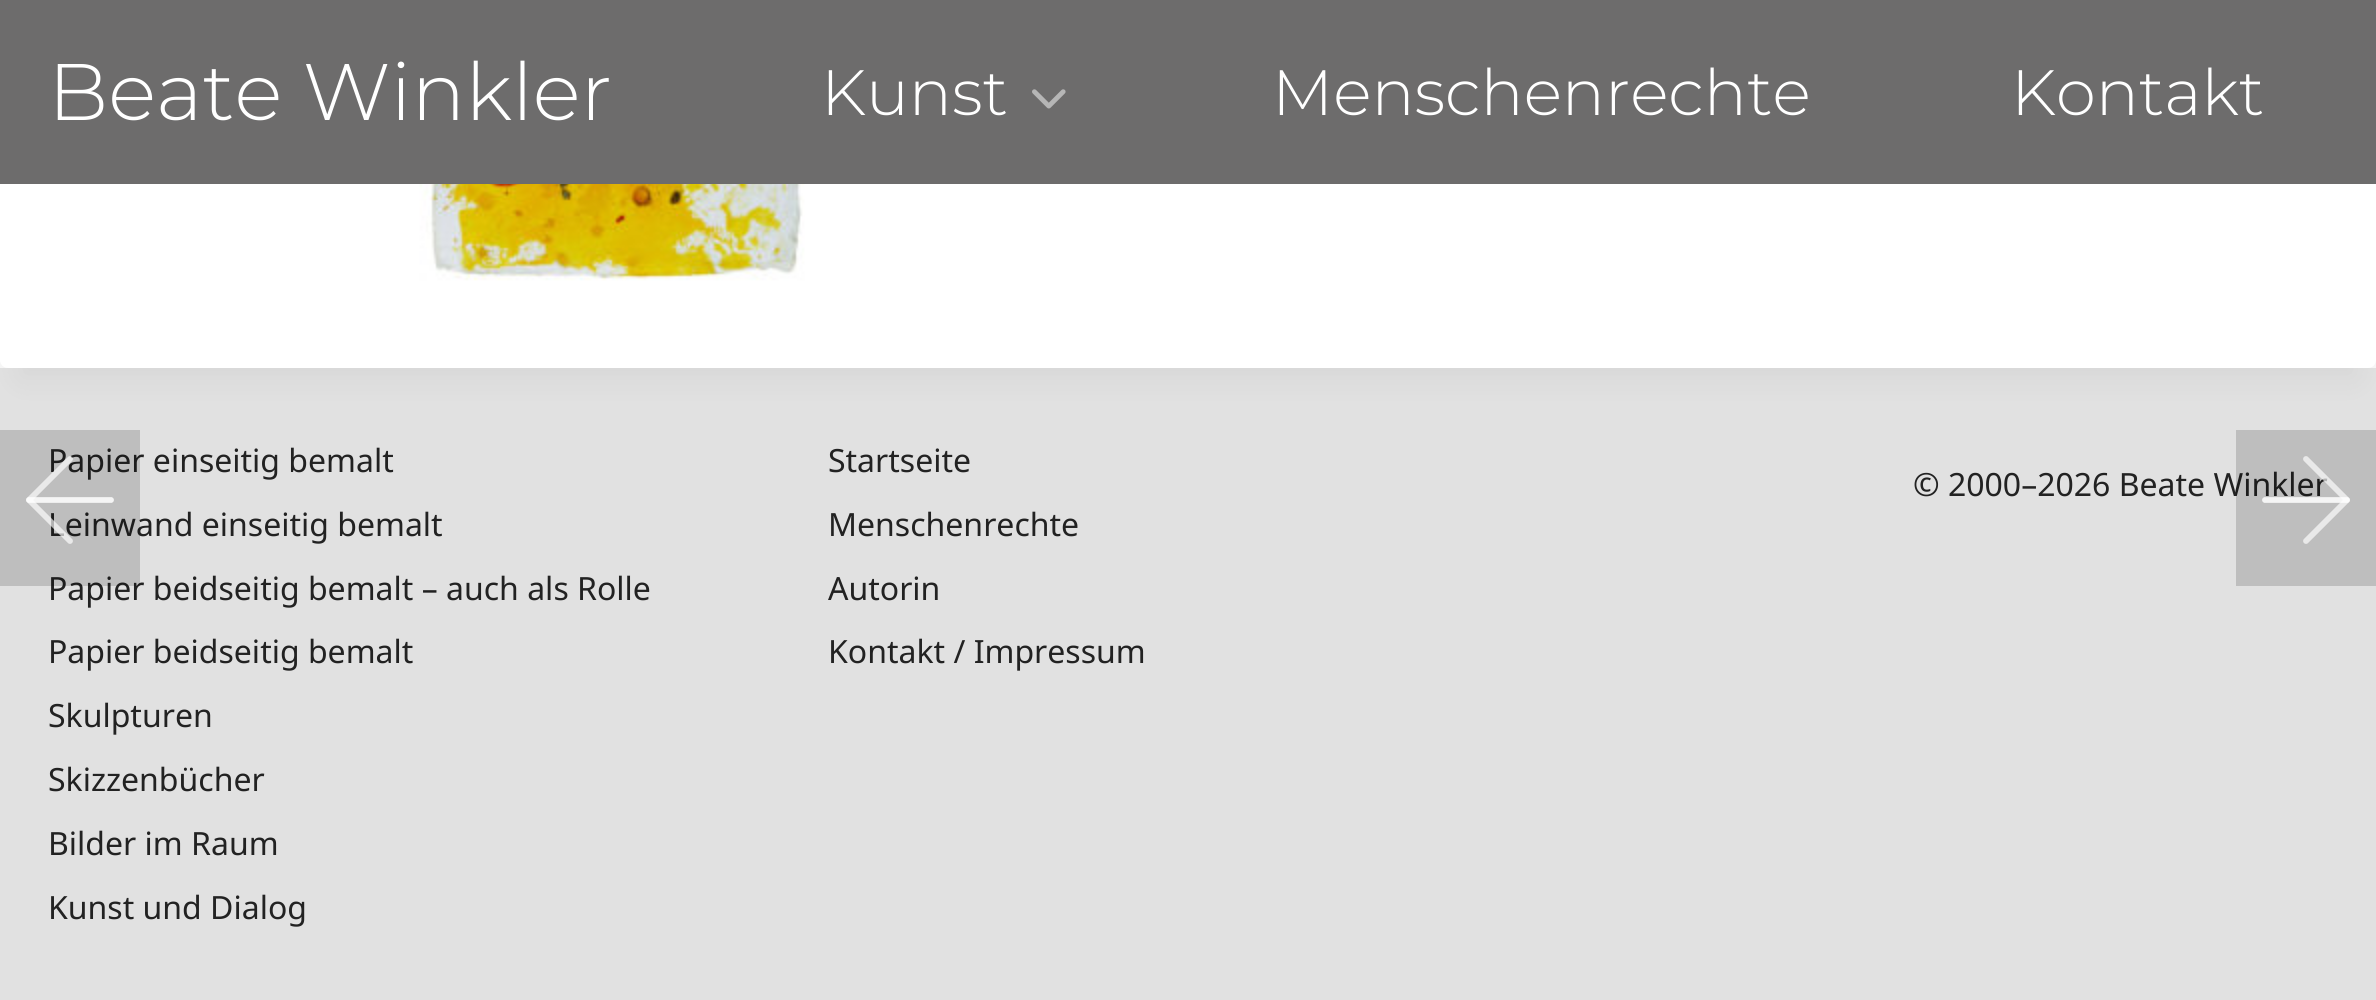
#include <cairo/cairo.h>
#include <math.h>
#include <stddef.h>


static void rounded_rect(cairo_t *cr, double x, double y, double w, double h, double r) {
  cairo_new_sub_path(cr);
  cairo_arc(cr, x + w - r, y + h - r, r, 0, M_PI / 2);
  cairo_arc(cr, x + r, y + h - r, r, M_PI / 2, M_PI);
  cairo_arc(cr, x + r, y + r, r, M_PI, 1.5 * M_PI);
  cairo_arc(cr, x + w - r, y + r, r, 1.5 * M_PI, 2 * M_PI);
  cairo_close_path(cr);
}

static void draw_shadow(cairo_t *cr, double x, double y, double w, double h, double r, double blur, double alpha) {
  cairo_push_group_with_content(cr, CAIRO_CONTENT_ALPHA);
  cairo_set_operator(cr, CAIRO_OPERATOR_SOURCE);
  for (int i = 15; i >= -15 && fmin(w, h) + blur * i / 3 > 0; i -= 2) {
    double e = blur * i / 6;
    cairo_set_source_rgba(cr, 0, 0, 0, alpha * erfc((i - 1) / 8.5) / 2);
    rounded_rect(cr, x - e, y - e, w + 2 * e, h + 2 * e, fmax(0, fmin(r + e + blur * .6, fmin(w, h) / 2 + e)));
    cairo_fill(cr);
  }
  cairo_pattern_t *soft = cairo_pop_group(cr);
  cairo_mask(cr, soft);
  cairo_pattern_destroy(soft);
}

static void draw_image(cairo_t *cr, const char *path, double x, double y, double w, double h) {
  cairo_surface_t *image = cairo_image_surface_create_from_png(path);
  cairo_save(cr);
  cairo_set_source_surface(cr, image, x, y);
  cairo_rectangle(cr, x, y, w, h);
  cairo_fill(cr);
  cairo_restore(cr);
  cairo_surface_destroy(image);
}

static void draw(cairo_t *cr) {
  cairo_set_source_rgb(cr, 247 / 255.0, 247 / 255.0, 247 / 255.0);
  cairo_paint(cr);
  cairo_set_source_rgb(cr, 225 / 255.0, 225 / 255.0, 225 / 255.0);
  cairo_rectangle(cr, 0, 368, 2376, 632);
  cairo_fill(cr);
  cairo_set_source_rgb(cr, 0, 0, 0);
  draw_shadow(cr, 20, -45, 2336, 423, 0, 15, 0.05);
  cairo_set_source_rgb(cr, 1, 1, 1);
  rounded_rect(cr, 0, -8, 2376, 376, 8);
  cairo_fill(cr);
  draw_image(cr, "images/1.png", 419, 184, 386, 97);
  cairo_set_source_rgb(cr, 109 / 255.0, 108 / 255.0, 108 / 255.0);
  cairo_rectangle(cr, 0, 0, 2376, 184);
  cairo_fill(cr);
  draw_image(cr, "images/2.png", 1032, 89, 34, 20);
  cairo_select_font_face(cr, "Montserrat Light", CAIRO_FONT_SLANT_NORMAL, CAIRO_FONT_WEIGHT_NORMAL);
  cairo_set_font_size(cr, 80);
  cairo_set_source_rgb(cr, 1, 1, 1);
  cairo_move_to(cr, 48, 120);
  cairo_show_text(cr, "Beate Winkler");
  cairo_set_font_size(cr, 64);
  cairo_move_to(cr, 821, 115);
  cairo_show_text(cr, "Kunst");
  cairo_move_to(cr, 1272, 115);
  cairo_show_text(cr, "Menschenrechte");
  cairo_move_to(cr, 2011, 115);
  cairo_show_text(cr, "Kontakt");
  cairo_select_font_face(cr, "Noto Sans", CAIRO_FONT_SLANT_NORMAL, CAIRO_FONT_WEIGHT_NORMAL);
  cairo_set_font_size(cr, 32);
  cairo_set_source_rgb(cr, 34 / 255.0, 34 / 255.0, 34 / 255.0);
  cairo_move_to(cr, 48, 472);
  cairo_show_text(cr, "Papier einseitig bemalt");
  cairo_move_to(cr, 48, 536);
  cairo_show_text(cr, "Leinwand einseitig bemalt");
  cairo_move_to(cr, 48, 600);
  cairo_show_text(cr, "Papier beidseitig bemalt – auch als Rolle");
  cairo_set_source_rgba(cr, 0, 0, 0, 0.16);
  cairo_rectangle(cr, 0, 430, 140, 156);
  cairo_fill(cr);
  cairo_new_path(cr);
  cairo_move_to(cr, 111, 500);
  cairo_line_to(cr, 29, 500);
  cairo_set_source_rgb(cr, 245 / 255.0, 245 / 255.0, 245 / 255.0);
  cairo_set_line_width(cr, 5.8);
  cairo_set_line_cap(cr, CAIRO_LINE_CAP_ROUND);
  cairo_set_line_join(cr, CAIRO_LINE_JOIN_ROUND);
  cairo_stroke(cr);
  cairo_new_path(cr);
  cairo_move_to(cr, 70, 541);
  cairo_line_to(cr, 29, 500);
  cairo_line_to(cr, 70, 459);
  cairo_set_source_rgba(cr, 1, 1, 1, 0.66);
  cairo_stroke(cr);
  cairo_set_source_rgb(cr, 34 / 255.0, 34 / 255.0, 34 / 255.0);
  cairo_move_to(cr, 48, 663);
  cairo_show_text(cr, "Papier beidseitig bemalt");
  cairo_move_to(cr, 48, 727);
  cairo_show_text(cr, "Skulpturen");
  cairo_move_to(cr, 48, 791);
  cairo_show_text(cr, "Skizzenbücher");
  cairo_move_to(cr, 48, 855);
  cairo_show_text(cr, "Bilder im Raum");
  cairo_move_to(cr, 48, 919);
  cairo_show_text(cr, "Kunst und Dialog");
  cairo_move_to(cr, 828, 472);
  cairo_show_text(cr, "Startseite");
  cairo_move_to(cr, 828, 536);
  cairo_show_text(cr, "Menschenrechte");
  cairo_move_to(cr, 828, 600);
  cairo_show_text(cr, "Autorin");
  cairo_move_to(cr, 828, 663);
  cairo_show_text(cr, "Kontakt / Impressum");
  cairo_move_to(cr, 1913, 496);
  cairo_show_text(cr, "© 2000–2026 Beate Winkler");
  cairo_set_source_rgba(cr, 0, 0, 0, 0.16);
  cairo_rectangle(cr, 2236, 430, 140, 156);
  cairo_fill(cr);
  cairo_new_path(cr);
  cairo_move_to(cr, 2265, 500);
  cairo_line_to(cr, 2347, 500);
  cairo_set_source_rgb(cr, 245 / 255.0, 245 / 255.0, 245 / 255.0);
  cairo_stroke(cr);
  cairo_new_path(cr);
  cairo_move_to(cr, 2306, 459);
  cairo_line_to(cr, 2347, 500);
  cairo_line_to(cr, 2306, 541);
  cairo_set_source_rgba(cr, 1, 1, 1, 0.66);
  cairo_stroke(cr);
}

int main(void) {
  cairo_surface_t *surface = cairo_image_surface_create(CAIRO_FORMAT_RGB24, 2376, 1000);
  cairo_t *cr = cairo_create(surface);
  cairo_font_options_t *options = cairo_font_options_create();
  cairo_font_options_set_hint_metrics(options, CAIRO_HINT_METRICS_OFF);
  cairo_font_options_set_hint_style(options, CAIRO_HINT_STYLE_NONE);
  cairo_set_font_options(cr, options);
  cairo_set_miter_limit(cr, 4);
  draw(cr);
  cairo_surface_write_to_png(surface, "out.png");
  cairo_font_options_destroy(options);
  cairo_destroy(cr);
  cairo_surface_destroy(surface);
  return 0;
}
